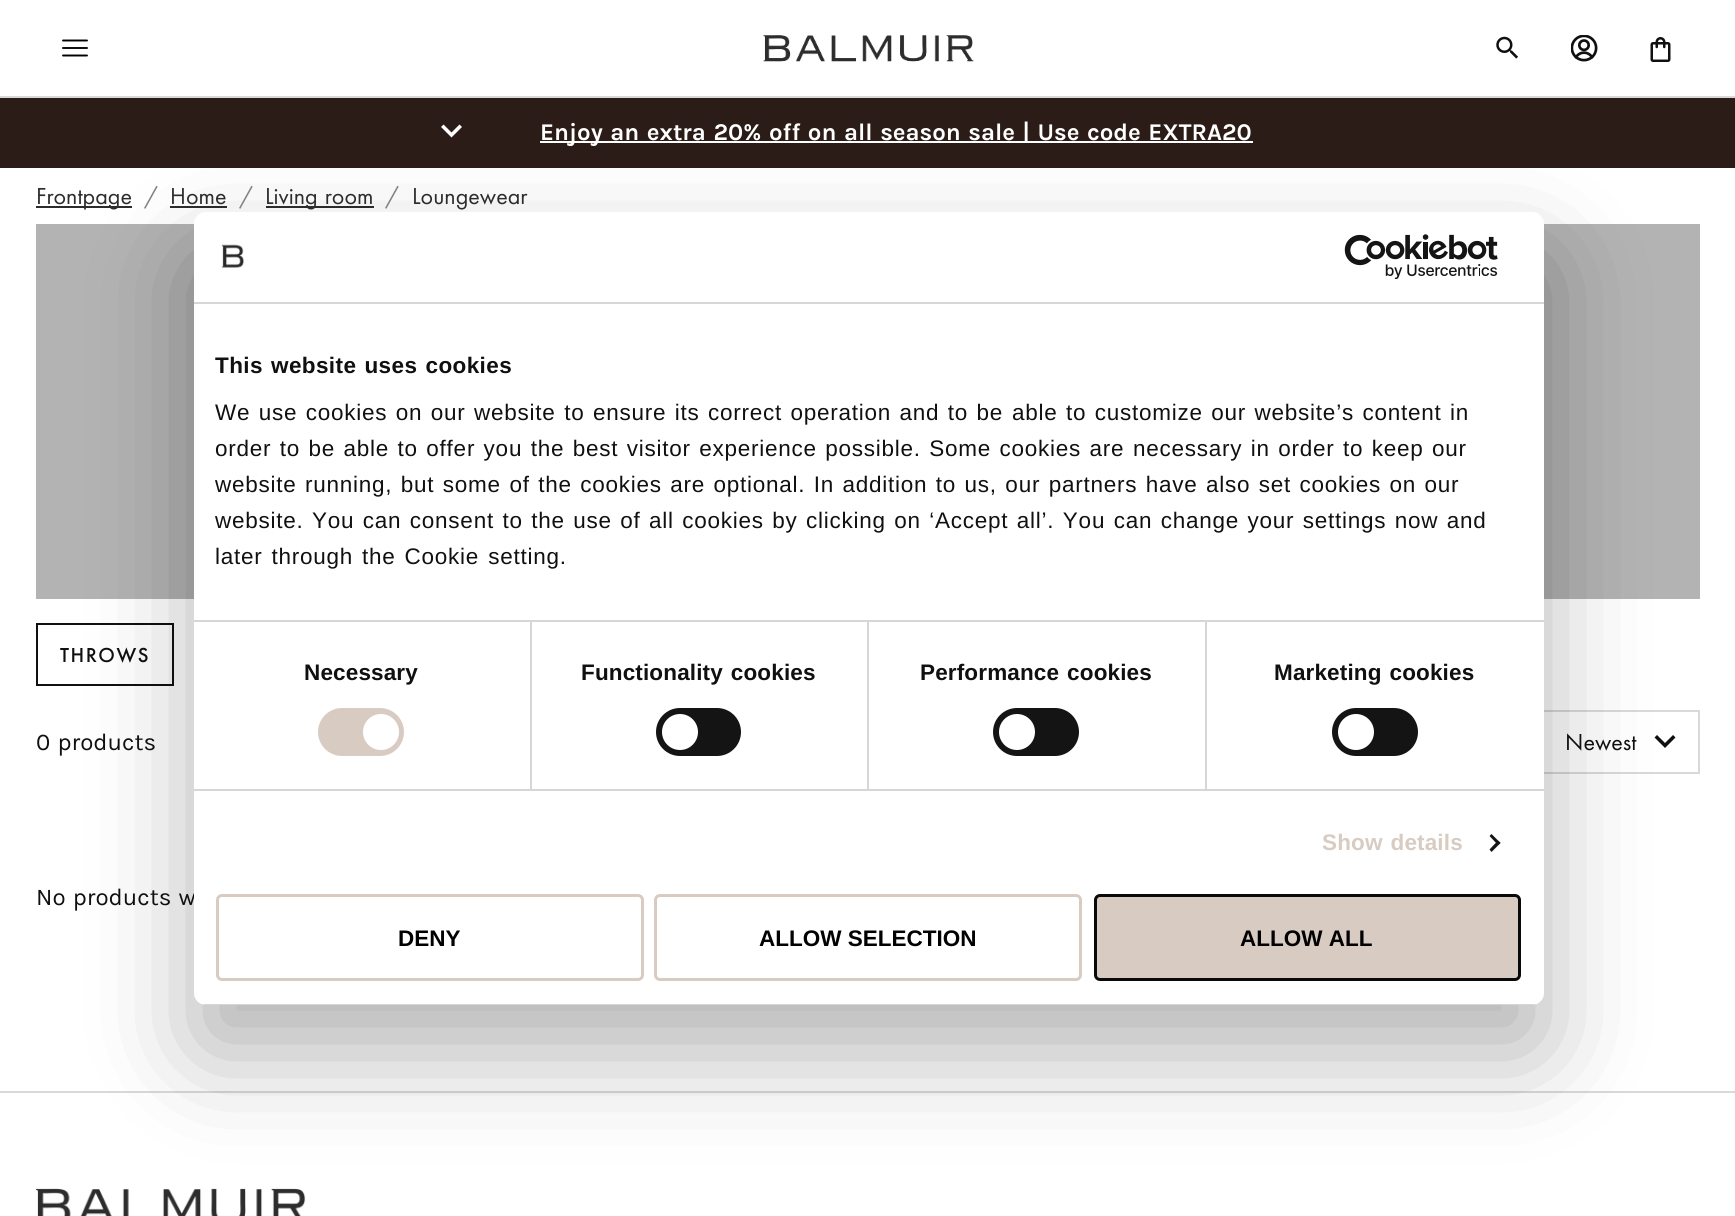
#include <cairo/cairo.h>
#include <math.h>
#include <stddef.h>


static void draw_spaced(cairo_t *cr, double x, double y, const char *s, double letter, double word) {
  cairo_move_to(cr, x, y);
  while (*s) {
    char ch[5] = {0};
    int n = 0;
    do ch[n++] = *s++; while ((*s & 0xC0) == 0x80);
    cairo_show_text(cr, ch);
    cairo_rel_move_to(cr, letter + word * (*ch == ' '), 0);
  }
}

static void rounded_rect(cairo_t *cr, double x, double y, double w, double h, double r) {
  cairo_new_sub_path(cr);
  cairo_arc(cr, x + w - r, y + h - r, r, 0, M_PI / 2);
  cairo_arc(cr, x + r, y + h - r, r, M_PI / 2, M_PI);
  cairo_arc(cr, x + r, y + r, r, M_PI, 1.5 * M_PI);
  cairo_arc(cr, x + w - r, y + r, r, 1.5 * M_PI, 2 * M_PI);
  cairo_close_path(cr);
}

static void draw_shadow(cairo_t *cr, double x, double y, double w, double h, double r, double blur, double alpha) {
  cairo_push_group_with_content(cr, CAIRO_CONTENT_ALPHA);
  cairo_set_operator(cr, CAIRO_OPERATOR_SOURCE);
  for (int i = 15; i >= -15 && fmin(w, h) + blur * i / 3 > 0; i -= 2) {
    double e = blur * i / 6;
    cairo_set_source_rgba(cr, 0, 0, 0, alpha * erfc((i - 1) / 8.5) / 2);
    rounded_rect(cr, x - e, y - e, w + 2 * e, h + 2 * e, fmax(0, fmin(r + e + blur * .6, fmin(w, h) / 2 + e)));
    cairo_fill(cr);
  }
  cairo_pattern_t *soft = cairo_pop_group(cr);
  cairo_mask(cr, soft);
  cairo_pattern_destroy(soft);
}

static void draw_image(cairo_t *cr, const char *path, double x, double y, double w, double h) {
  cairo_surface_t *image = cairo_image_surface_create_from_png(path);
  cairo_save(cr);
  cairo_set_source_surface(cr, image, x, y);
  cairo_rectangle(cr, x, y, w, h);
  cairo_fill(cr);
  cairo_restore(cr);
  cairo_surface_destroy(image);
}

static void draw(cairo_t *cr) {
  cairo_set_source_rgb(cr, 1, 1, 1);
  cairo_paint(cr);
  cairo_set_source_rgb(cr, 217 / 255.0, 217 / 255.0, 217 / 255.0);
  cairo_rectangle(cr, 0, 96, 1735, 2);
  cairo_fill(cr);
  cairo_new_path(cr);
  cairo_move_to(cr, 63, 55.5);
  cairo_line_to(cr, 87, 55.5);
  cairo_move_to(cr, 63, 48);
  cairo_line_to(cr, 87, 48);
  cairo_move_to(cr, 63, 40.5);
  cairo_line_to(cr, 87, 40.5);
  cairo_set_source_rgb(cr, 0, 0, 0);
  cairo_set_line_width(cr, 1.9);
  cairo_set_line_cap(cr, CAIRO_LINE_CAP_ROUND);
  cairo_set_line_join(cr, CAIRO_LINE_JOIN_ROUND);
  cairo_stroke(cr);
  draw_image(cr, "images/1.png", 763, 35, 211, 27);
  draw_image(cr, "images/2.png", 1496, 36, 22, 23);
  draw_image(cr, "images/3.png", 1571, 35, 27, 27);
  draw_image(cr, "images/4.png", 1650, 37, 21, 25);
  cairo_set_source_rgb(cr, 43 / 255.0, 28 / 255.0, 23 / 255.0);
  cairo_rectangle(cr, 0, 98, 1735, 70);
  cairo_fill(cr);
  cairo_set_source_rgb(cr, 1, 1, 1);
  cairo_set_fill_rule(cr, CAIRO_FILL_RULE_EVEN_ODD);
  cairo_new_path(cr);
  cairo_move_to(cr, 459.5, 124.5);
  cairo_line_to(cr, 451.5, 132.5);
  cairo_line_to(cr, 443.5, 124.5);
  cairo_line_to(cr, 441, 127);
  cairo_line_to(cr, 451.5, 137.5);
  cairo_line_to(cr, 462, 127);
  cairo_close_path(cr);
  cairo_fill(cr);
  cairo_rectangle(cr, 540, 141, 713, 2);
  cairo_fill(cr);
  cairo_set_source_rgb(cr, 44 / 255.0, 44 / 255.0, 44 / 255.0);
  cairo_rectangle(cr, 36, 206, 96, 2);
  cairo_fill(cr);
  cairo_rectangle(cr, 170, 206, 57, 2);
  cairo_fill(cr);
  cairo_rectangle(cr, 266, 206, 108, 2);
  cairo_fill(cr);
  cairo_set_source_rgb(cr, 179 / 255.0, 179 / 255.0, 179 / 255.0);
  cairo_rectangle(cr, 36, 224, 1664, 375);
  cairo_fill(cr);
  cairo_rectangle(cr, 37, 624, 136, 61);
  cairo_set_source_rgb(cr, 16 / 255.0, 16 / 255.0, 16 / 255.0);
  cairo_set_line_width(cr, 2);
  cairo_set_line_cap(cr, CAIRO_LINE_CAP_BUTT);
  cairo_set_line_join(cr, CAIRO_LINE_JOIN_MITER);
  cairo_stroke(cr);
  cairo_rectangle(cr, 1542, 711, 157, 62);
  cairo_set_source_rgb(cr, 217 / 255.0, 217 / 255.0, 217 / 255.0);
  cairo_stroke(cr);
  cairo_set_source_rgb(cr, 16 / 255.0, 16 / 255.0, 16 / 255.0);
  cairo_new_path(cr);
  cairo_move_to(cr, 1673, 735);
  cairo_line_to(cr, 1665, 743);
  cairo_line_to(cr, 1657, 735);
  cairo_line_to(cr, 1654.5, 737.5);
  cairo_line_to(cr, 1665, 748);
  cairo_line_to(cr, 1675.5, 737.5);
  cairo_close_path(cr);
  cairo_fill(cr);
  cairo_set_source_rgb(cr, 217 / 255.0, 217 / 255.0, 217 / 255.0);
  cairo_rectangle(cr, 0, 1091, 1735, 2);
  cairo_fill(cr);
  draw_image(cr, "images/5.png", 36, 1188, 270, 28);
  cairo_set_source_rgb(cr, 0, 0, 0);
  draw_shadow(cr, 194, 260, 1350, 793, 12, 51, 0.3);
  cairo_select_font_face(cr, "Karla", CAIRO_FONT_SLANT_NORMAL, CAIRO_FONT_WEIGHT_BOLD);
  cairo_set_font_size(cr, 24);
  cairo_set_source_rgb(cr, 1, 1, 1);
  draw_spaced(cr, 540, 140, "Enjoy an extra 20% off on all season sale | Use code EXTRA20", 0, 1.5);
  cairo_select_font_face(cr, "Futura PT", CAIRO_FONT_SLANT_NORMAL, CAIRO_FONT_WEIGHT_NORMAL);
  cairo_set_source_rgb(cr, 44 / 255.0, 44 / 255.0, 44 / 255.0);
  cairo_move_to(cr, 36, 204);
  cairo_show_text(cr, "Frontpage");
  cairo_set_source_rgb(cr, 130 / 255.0, 130 / 255.0, 130 / 255.0);
  cairo_move_to(cr, 144, 204);
  cairo_show_text(cr, "/");
  cairo_set_source_rgb(cr, 44 / 255.0, 44 / 255.0, 44 / 255.0);
  cairo_move_to(cr, 170, 204);
  cairo_show_text(cr, "Home");
  cairo_set_source_rgb(cr, 130 / 255.0, 130 / 255.0, 130 / 255.0);
  cairo_move_to(cr, 239, 204);
  cairo_show_text(cr, "/");
  cairo_set_source_rgb(cr, 44 / 255.0, 44 / 255.0, 44 / 255.0);
  draw_spaced(cr, 265, 204, "Living room", 0, 1.5);
  cairo_set_source_rgb(cr, 130 / 255.0, 130 / 255.0, 130 / 255.0);
  cairo_move_to(cr, 385, 204);
  cairo_show_text(cr, "/");
  cairo_set_source_rgb(cr, 44 / 255.0, 44 / 255.0, 44 / 255.0);
  cairo_move_to(cr, 412, 204);
  cairo_show_text(cr, "Loungewear");
  cairo_select_font_face(cr, "Futura PT Medium", CAIRO_FONT_SLANT_NORMAL, CAIRO_FONT_WEIGHT_NORMAL);
  cairo_set_font_size(cr, 21);
  cairo_set_source_rgb(cr, 16 / 255.0, 16 / 255.0, 16 / 255.0);
  draw_spaced(cr, 60, 662, "THROWS", 1.5, 0);
  cairo_select_font_face(cr, "Karla", CAIRO_FONT_SLANT_NORMAL, CAIRO_FONT_WEIGHT_NORMAL);
  cairo_set_font_size(cr, 24);
  draw_spaced(cr, 36, 750, "0 products", 0, 1.5);
  cairo_select_font_face(cr, "Futura PT", CAIRO_FONT_SLANT_NORMAL, CAIRO_FONT_WEIGHT_NORMAL);
  cairo_move_to(cr, 1565, 750);
  cairo_show_text(cr, "Newest");
  cairo_select_font_face(cr, "Karla", CAIRO_FONT_SLANT_NORMAL, CAIRO_FONT_WEIGHT_NORMAL);
  draw_spaced(cr, 36, 905, "No products w", 0, 1.5);
  cairo_set_source_rgb(cr, 1, 1, 1);
  rounded_rect(cr, 194, 212, 1350, 793, 12);
  cairo_fill(cr);
  cairo_set_source_rgb(cr, 214 / 255.0, 214 / 255.0, 214 / 255.0);
  cairo_rectangle(cr, 194, 302, 1350, 2);
  cairo_fill(cr);
  draw_image(cr, "images/6.png", 221, 244, 23, 24);
  draw_image(cr, "images/7.png", 1344, 234, 154, 45);
  cairo_select_font_face(cr, "Liberation Sans", CAIRO_FONT_SLANT_NORMAL, CAIRO_FONT_WEIGHT_BOLD);
  cairo_set_font_size(cr, 22.5);
  cairo_set_source_rgb(cr, 16 / 255.0, 16 / 255.0, 16 / 255.0);
  draw_spaced(cr, 215, 373, "This website uses cookies", 0.4, 1.5);
  cairo_select_font_face(cr, "Liberation Sans", CAIRO_FONT_SLANT_NORMAL, CAIRO_FONT_WEIGHT_NORMAL);
  draw_spaced(cr, 215, 420, "We use cookies on our website to ensure its correct operation and to be", 0.75, 1.5);
  draw_spaced(cr, 1012, 420, "able to customize our website’s content in", 0.75, 1.5);
  draw_spaced(cr, 215, 456, "order to be able to offer you the best visitor experience possible. Some cookies are necessary in order to keep our", 0.75, 1.5);
  draw_spaced(cr, 215, 492, "website running, but some of the cookies are optional. In addition to us, our partners have also set cookies on our", 0.75, 1.5);
  draw_spaced(cr, 215, 528, "website. You can consent to the use of all cookies by clicking on ‘Accept all’. You can change your settings now and", 0.75, 1.5);
  draw_spaced(cr, 215, 564, "later through the Cookie setting.", 0.75, 2);
  cairo_set_source_rgb(cr, 214 / 255.0, 214 / 255.0, 214 / 255.0);
  cairo_rectangle(cr, 194, 789, 1350, 2);
  cairo_fill(cr);
  cairo_rectangle(cr, 530, 621, 2, 168);
  cairo_fill(cr);
  cairo_select_font_face(cr, "Liberation Sans", CAIRO_FONT_SLANT_NORMAL, CAIRO_FONT_WEIGHT_BOLD);
  cairo_set_source_rgb(cr, 16 / 255.0, 16 / 255.0, 16 / 255.0);
  draw_spaced(cr, 304, 680, "Necessary", 0.15, 0);
  cairo_set_source_rgb(cr, 216 / 255.0, 203 / 255.0, 194 / 255.0);
  rounded_rect(cr, 318, 708, 86, 48, 24);
  cairo_fill(cr);
  cairo_set_source_rgb(cr, 1, 1, 1);
  cairo_arc(cr, 381, 732, 18, 0, 2 * M_PI);
  cairo_fill(cr);
  cairo_set_source_rgb(cr, 214 / 255.0, 214 / 255.0, 214 / 255.0);
  cairo_rectangle(cr, 867, 621, 2, 168);
  cairo_fill(cr);
  cairo_set_source_rgb(cr, 16 / 255.0, 16 / 255.0, 16 / 255.0);
  draw_spaced(cr, 581, 680, "Functionality cookies", 0.15, 1.5);
  cairo_set_source_rgb(cr, 20 / 255.0, 20 / 255.0, 20 / 255.0);
  rounded_rect(cr, 656, 708, 85, 48, 24);
  cairo_fill(cr);
  cairo_set_source_rgb(cr, 1, 1, 1);
  cairo_arc(cr, 680, 732, 18, 0, 2 * M_PI);
  cairo_fill(cr);
  cairo_set_source_rgb(cr, 214 / 255.0, 214 / 255.0, 214 / 255.0);
  cairo_rectangle(cr, 1205, 621, 2, 168);
  cairo_fill(cr);
  cairo_rectangle(cr, 194, 620, 1350, 2);
  cairo_fill(cr);
  cairo_set_source_rgb(cr, 16 / 255.0, 16 / 255.0, 16 / 255.0);
  draw_spaced(cr, 920, 680, "Performance cookies", 0.15, 1.5);
  cairo_set_source_rgb(cr, 20 / 255.0, 20 / 255.0, 20 / 255.0);
  rounded_rect(cr, 993, 708, 86, 48, 24);
  cairo_fill(cr);
  cairo_set_source_rgb(cr, 1, 1, 1);
  cairo_arc(cr, 1017, 732, 18, 0, 2 * M_PI);
  cairo_fill(cr);
  cairo_set_source_rgb(cr, 16 / 255.0, 16 / 255.0, 16 / 255.0);
  draw_spaced(cr, 1274, 680, "Marketing cookies", 0.15, 1.5);
  cairo_set_source_rgb(cr, 20 / 255.0, 20 / 255.0, 20 / 255.0);
  rounded_rect(cr, 1332, 708, 86, 48, 24);
  cairo_fill(cr);
  cairo_set_source_rgb(cr, 1, 1, 1);
  cairo_arc(cr, 1356, 732, 18, 0, 2 * M_PI);
  cairo_fill(cr);
  cairo_set_source_rgb(cr, 216 / 255.0, 203 / 255.0, 194 / 255.0);
  draw_spaced(cr, 1322, 850, "Show details", 0.15, 1.5);
  cairo_set_source_rgb(cr, 20 / 255.0, 20 / 255.0, 20 / 255.0);
  cairo_set_fill_rule(cr, CAIRO_FILL_RULE_WINDING);
  cairo_new_path(cr);
  cairo_move_to(cr, 1491.5, 834);
  cairo_line_to(cr, 1500.5, 843);
  cairo_line_to(cr, 1498, 845);
  cairo_line_to(cr, 1489.5, 836);
  cairo_close_path(cr);
  cairo_fill(cr);
  cairo_new_path(cr);
  cairo_move_to(cr, 1498, 840.5);
  cairo_line_to(cr, 1500.5, 843);
  cairo_line_to(cr, 1491.5, 852);
  cairo_line_to(cr, 1489.5, 849.5);
  cairo_close_path(cr);
  cairo_fill(cr);
  cairo_save(cr);
  rounded_rect(cr, 194, 212, 1350, 793, 12);
  cairo_clip(cr);
  cairo_set_source_rgb(cr, 214 / 255.0, 214 / 255.0, 214 / 255.0);
  cairo_rectangle(cr, 194, 1004, 1350, 1);
  cairo_fill(cr);
  cairo_restore(cr);
  rounded_rect(cr, 217.5, 895.5, 425, 84, 4.5);
  cairo_set_source_rgb(cr, 216 / 255.0, 203 / 255.0, 194 / 255.0);
  cairo_set_line_width(cr, 3);
  cairo_stroke(cr);
  cairo_set_source_rgb(cr, 0, 0, 0);
  cairo_move_to(cr, 398, 946);
  cairo_show_text(cr, "DENY");
  rounded_rect(cr, 655.5, 895.5, 425, 84, 4.5);
  cairo_set_source_rgb(cr, 216 / 255.0, 203 / 255.0, 194 / 255.0);
  cairo_stroke(cr);
  cairo_set_source_rgb(cr, 0, 0, 0);
  cairo_move_to(cr, 759, 946);
  cairo_show_text(cr, "ALLOW SELECTION");
  cairo_set_source_rgb(cr, 216 / 255.0, 203 / 255.0, 194 / 255.0);
  rounded_rect(cr, 1095.5, 895.5, 424, 84, 4.5);
  cairo_fill_preserve(cr);
  cairo_set_source_rgb(cr, 9 / 255.0, 9 / 255.0, 9 / 255.0);
  cairo_stroke(cr);
  cairo_set_source_rgb(cr, 0, 0, 0);
  cairo_move_to(cr, 1240, 946);
  cairo_show_text(cr, "ALLOW ALL");
}

int main(void) {
  cairo_surface_t *surface = cairo_image_surface_create(CAIRO_FORMAT_RGB24, 1735, 1216);
  cairo_t *cr = cairo_create(surface);
  cairo_font_options_t *options = cairo_font_options_create();
  cairo_font_options_set_hint_metrics(options, CAIRO_HINT_METRICS_OFF);
  cairo_font_options_set_hint_style(options, CAIRO_HINT_STYLE_NONE);
  cairo_set_font_options(cr, options);
  cairo_set_miter_limit(cr, 4);
  draw(cr);
  cairo_surface_write_to_png(surface, "out.png");
  cairo_font_options_destroy(options);
  cairo_destroy(cr);
  cairo_surface_destroy(surface);
  return 0;
}
